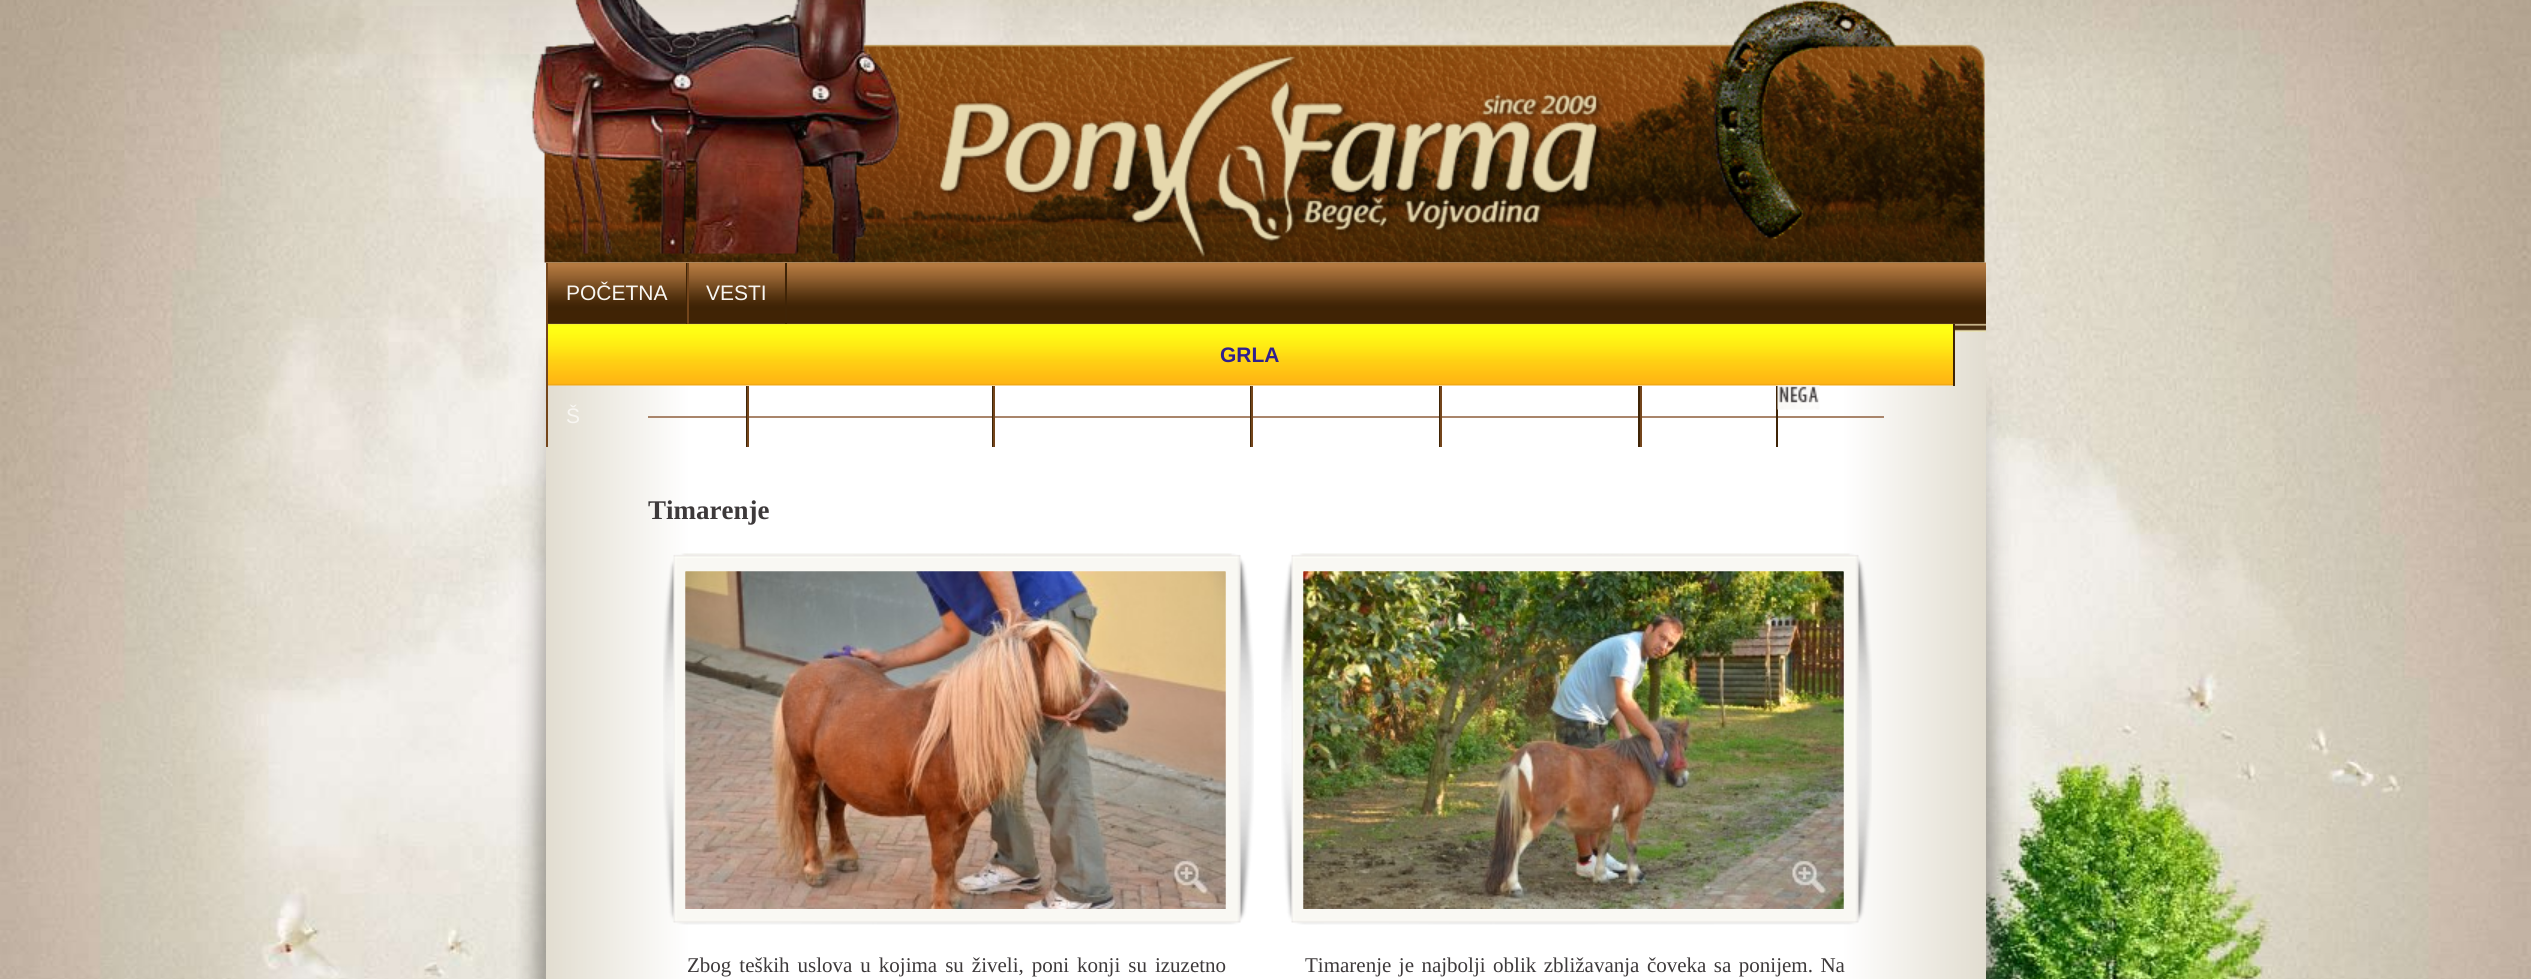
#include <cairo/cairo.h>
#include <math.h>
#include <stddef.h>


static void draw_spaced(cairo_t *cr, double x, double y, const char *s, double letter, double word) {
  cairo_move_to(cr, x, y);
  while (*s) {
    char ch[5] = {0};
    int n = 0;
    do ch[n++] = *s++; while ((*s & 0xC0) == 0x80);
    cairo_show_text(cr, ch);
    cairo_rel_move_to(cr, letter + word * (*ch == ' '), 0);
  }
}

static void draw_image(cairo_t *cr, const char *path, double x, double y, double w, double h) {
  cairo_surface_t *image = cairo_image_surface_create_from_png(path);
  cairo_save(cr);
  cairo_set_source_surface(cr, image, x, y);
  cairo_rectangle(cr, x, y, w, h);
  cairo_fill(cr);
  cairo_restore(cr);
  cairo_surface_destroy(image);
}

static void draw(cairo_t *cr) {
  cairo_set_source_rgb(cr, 1, 1, 1);
  cairo_paint(cr);
  draw_image(cr, "images/1.png", 0, 0, 2531, 979);
  draw_image(cr, "images/2.png", 516, 338, 1500, 641);
  draw_image(cr, "images/3.png", 531, 0, 1454, 263);
  draw_image(cr, "images/4.png", 546, 262, 1440, 70);
  cairo_set_source_rgb(cr, 63 / 255.0, 36 / 255.0, 7 / 255.0);
  cairo_rectangle(cr, 686, 263, 1, 61);
  cairo_fill(cr);
  draw_image(cr, "images/6.png", 546, 331, 1440, 648);
  cairo_set_source_rgb(cr, 116 / 255.0, 69 / 255.0, 27 / 255.0);
  cairo_rectangle(cr, 546, 263, 2, 184);
  cairo_fill(cr);
  cairo_set_source_rgb(cr, 63 / 255.0, 36 / 255.0, 7 / 255.0);
  cairo_rectangle(cr, 785, 263, 2, 61);
  cairo_fill(cr);
  cairo_set_source_rgb(cr, 116 / 255.0, 69 / 255.0, 27 / 255.0);
  cairo_rectangle(cr, 687, 263, 2, 61);
  cairo_fill(cr);
  draw_image(cr, "images/5.png", 548, 324, 1405, 62);
  cairo_set_source_rgb(cr, 63 / 255.0, 36 / 255.0, 7 / 255.0);
  cairo_rectangle(cr, 1953, 324, 2, 62);
  cairo_fill(cr);
  cairo_set_source_rgb(cr, 169 / 255.0, 133 / 255.0, 107 / 255.0);
  cairo_rectangle(cr, 648, 416, 1236, 2);
  cairo_fill(cr);
  cairo_set_source_rgb(cr, 63 / 255.0, 36 / 255.0, 7 / 255.0);
  cairo_rectangle(cr, 746, 386, 1, 61);
  cairo_fill(cr);
  cairo_rectangle(cr, 992, 386, 1, 61);
  cairo_fill(cr);
  cairo_set_source_rgb(cr, 116 / 255.0, 69 / 255.0, 27 / 255.0);
  cairo_rectangle(cr, 747, 386, 2, 61);
  cairo_fill(cr);
  cairo_set_source_rgb(cr, 63 / 255.0, 36 / 255.0, 7 / 255.0);
  cairo_rectangle(cr, 1250, 386, 1, 61);
  cairo_fill(cr);
  cairo_set_source_rgb(cr, 116 / 255.0, 69 / 255.0, 27 / 255.0);
  cairo_rectangle(cr, 993, 386, 2, 61);
  cairo_fill(cr);
  cairo_set_source_rgb(cr, 63 / 255.0, 36 / 255.0, 7 / 255.0);
  cairo_rectangle(cr, 1439, 386, 1, 61);
  cairo_fill(cr);
  cairo_set_source_rgb(cr, 116 / 255.0, 69 / 255.0, 27 / 255.0);
  cairo_rectangle(cr, 1251, 386, 2, 61);
  cairo_fill(cr);
  cairo_set_source_rgb(cr, 63 / 255.0, 36 / 255.0, 7 / 255.0);
  cairo_rectangle(cr, 1638, 386, 2, 61);
  cairo_fill(cr);
  cairo_set_source_rgb(cr, 116 / 255.0, 69 / 255.0, 27 / 255.0);
  cairo_rectangle(cr, 1440, 386, 2, 61);
  cairo_fill(cr);
  cairo_set_source_rgb(cr, 63 / 255.0, 36 / 255.0, 7 / 255.0);
  cairo_rectangle(cr, 1776, 386, 2, 61);
  cairo_fill(cr);
  cairo_set_source_rgb(cr, 116 / 255.0, 69 / 255.0, 27 / 255.0);
  cairo_rectangle(cr, 1640, 386, 2, 61);
  cairo_fill(cr);
  draw_image(cr, "images/7.png", 1777, 385, 43, 25);
  draw_image(cr, "images/8.png", 663, 553, 591, 372);
  draw_image(cr, "images/9.png", 685, 571, 541, 338);
  draw_image(cr, "images/10.png", 1281, 553, 591, 372);
  draw_image(cr, "images/11.png", 1303, 571, 541, 338);
  cairo_select_font_face(cr, "Liberation Sans", CAIRO_FONT_SLANT_NORMAL, CAIRO_FONT_WEIGHT_NORMAL);
  cairo_set_font_size(cr, 21);
  cairo_set_source_rgb(cr, 248 / 255.0, 246 / 255.0, 242 / 255.0);
  cairo_move_to(cr, 566, 300);
  cairo_show_text(cr, "POČETNA");
  cairo_move_to(cr, 706, 300);
  cairo_show_text(cr, "VESTI");
  cairo_select_font_face(cr, "Liberation Sans", CAIRO_FONT_SLANT_NORMAL, CAIRO_FONT_WEIGHT_BOLD);
  cairo_set_source_rgb(cr, 48 / 255.0, 32 / 255.0, 141 / 255.0);
  cairo_move_to(cr, 1220, 362);
  cairo_show_text(cr, "GRLA");
  cairo_select_font_face(cr, "Liberation Sans", CAIRO_FONT_SLANT_NORMAL, CAIRO_FONT_WEIGHT_NORMAL);
  cairo_set_source_rgb(cr, 248 / 255.0, 246 / 255.0, 242 / 255.0);
  cairo_move_to(cr, 566, 423);
  cairo_show_text(cr, "Š");
  cairo_select_font_face(cr, "Liberation Serif", CAIRO_FONT_SLANT_NORMAL, CAIRO_FONT_WEIGHT_BOLD);
  cairo_set_font_size(cr, 27);
  cairo_set_source_rgb(cr, 61 / 255.0, 57 / 255.0, 58 / 255.0);
  cairo_move_to(cr, 648, 519);
  cairo_show_text(cr, "Timarenje");
  cairo_select_font_face(cr, "Liberation Serif", CAIRO_FONT_SLANT_NORMAL, CAIRO_FONT_WEIGHT_NORMAL);
  cairo_set_font_size(cr, 21);
  draw_spaced(cr, 687, 972, "Zbog teških uslova u kojima su živeli, poni konji su izuzetno", 0, 2.75);
  draw_spaced(cr, 1305, 972, "Timarenje je najbolji oblik zbližavanja čoveka sa ponijem. Na", 0, 2.25);
}

int main(void) {
  cairo_surface_t *surface = cairo_image_surface_create(CAIRO_FORMAT_RGB24, 2531, 979);
  cairo_t *cr = cairo_create(surface);
  cairo_font_options_t *options = cairo_font_options_create();
  cairo_font_options_set_hint_metrics(options, CAIRO_HINT_METRICS_OFF);
  cairo_font_options_set_hint_style(options, CAIRO_HINT_STYLE_NONE);
  cairo_set_font_options(cr, options);
  cairo_set_miter_limit(cr, 4);
  draw(cr);
  cairo_surface_write_to_png(surface, "out.png");
  cairo_font_options_destroy(options);
  cairo_destroy(cr);
  cairo_surface_destroy(surface);
  return 0;
}
